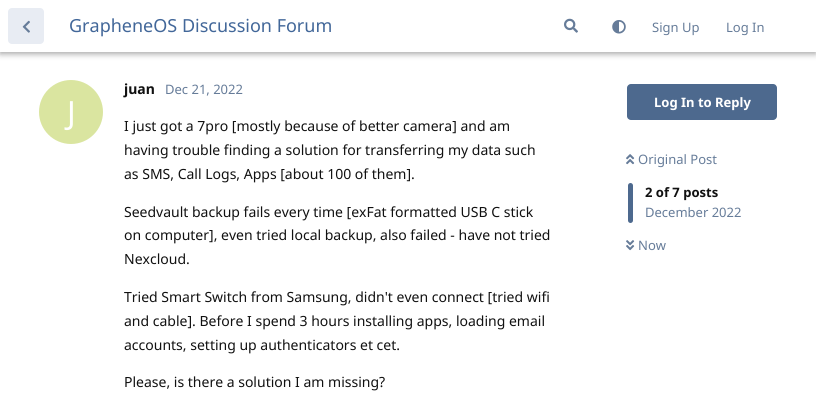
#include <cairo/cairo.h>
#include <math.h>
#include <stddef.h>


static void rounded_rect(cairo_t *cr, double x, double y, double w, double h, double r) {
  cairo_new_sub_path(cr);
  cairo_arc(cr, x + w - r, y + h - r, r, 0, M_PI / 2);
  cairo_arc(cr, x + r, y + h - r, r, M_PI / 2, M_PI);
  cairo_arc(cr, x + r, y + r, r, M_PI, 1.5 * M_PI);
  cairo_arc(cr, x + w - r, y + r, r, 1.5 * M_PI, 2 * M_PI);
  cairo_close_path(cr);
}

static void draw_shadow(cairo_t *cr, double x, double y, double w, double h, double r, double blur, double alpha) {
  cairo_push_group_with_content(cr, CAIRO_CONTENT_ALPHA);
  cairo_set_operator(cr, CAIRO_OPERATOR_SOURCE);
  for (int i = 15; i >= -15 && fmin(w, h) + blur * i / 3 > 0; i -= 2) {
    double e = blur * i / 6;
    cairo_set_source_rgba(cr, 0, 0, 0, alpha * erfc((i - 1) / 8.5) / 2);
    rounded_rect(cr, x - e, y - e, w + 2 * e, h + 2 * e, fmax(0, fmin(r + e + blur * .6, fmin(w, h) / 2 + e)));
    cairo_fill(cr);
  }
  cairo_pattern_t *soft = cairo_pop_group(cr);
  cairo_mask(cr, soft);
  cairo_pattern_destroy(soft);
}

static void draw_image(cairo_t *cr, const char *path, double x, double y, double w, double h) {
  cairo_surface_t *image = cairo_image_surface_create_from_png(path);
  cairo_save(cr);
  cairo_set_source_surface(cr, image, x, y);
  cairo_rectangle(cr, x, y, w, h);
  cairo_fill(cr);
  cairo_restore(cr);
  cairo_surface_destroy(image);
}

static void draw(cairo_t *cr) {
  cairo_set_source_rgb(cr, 1, 1, 1);
  cairo_paint(cr);
  cairo_set_source_rgb(cr, 0, 0, 0);
  draw_shadow(cr, 0, 2, 816, 52, 0, 3, 0.35);
  cairo_set_source_rgb(cr, 1, 1, 1);
  cairo_rectangle(cr, 0, 0, 816, 52);
  cairo_fill(cr);
  cairo_set_source_rgb(cr, 232 / 255.0, 236 / 255.0, 243 / 255.0);
  rounded_rect(cr, 8, 8, 36, 36, 4);
  cairo_fill(cr);
  draw_image(cr, "images/1.png", 22, 20, 8, 13);
  draw_image(cr, "images/2.png", 564, 18, 14, 15);
  draw_image(cr, "images/3.png", 612, 20, 14, 14);
  cairo_set_source_rgb(cr, 218 / 255.0, 229 / 255.0, 160 / 255.0);
  cairo_arc(cr, 71, 112, 32, 0, 2 * M_PI);
  cairo_fill(cr);
  cairo_set_source_rgb(cr, 77 / 255.0, 105 / 255.0, 142 / 255.0);
  rounded_rect(cr, 627, 84, 150, 36, 4);
  cairo_fill(cr);
  draw_image(cr, "images/4.png", 626, 154, 9, 11);
  rounded_rect(cr, 628, 183, 5, 40, 2.5);
  cairo_fill(cr);
  draw_image(cr, "images/5.png", 626, 240, 9, 11);
  cairo_select_font_face(cr, "Noto Sans", CAIRO_FONT_SLANT_NORMAL, CAIRO_FONT_WEIGHT_NORMAL);
  cairo_set_font_size(cr, 18);
  cairo_set_source_rgb(cr, 66 / 255.0, 103 / 255.0, 153 / 255.0);
  cairo_move_to(cr, 69, 32);
  cairo_show_text(cr, "GrapheneOS Discussion Forum");
  cairo_set_font_size(cr, 13);
  cairo_set_source_rgb(cr, 102 / 255.0, 124 / 255.0, 153 / 255.0);
  cairo_move_to(cr, 652, 32);
  cairo_show_text(cr, "Sign Up");
  cairo_move_to(cr, 726, 32);
  cairo_show_text(cr, "Log In");
  cairo_select_font_face(cr, "Noto Sans", CAIRO_FONT_SLANT_NORMAL, CAIRO_FONT_WEIGHT_BOLD);
  cairo_set_font_size(cr, 14);
  cairo_set_source_rgb(cr, 17 / 255.0, 17 / 255.0, 17 / 255.0);
  cairo_move_to(cr, 124, 94);
  cairo_show_text(cr, "juan");
  cairo_select_font_face(cr, "Noto Sans", CAIRO_FONT_SLANT_NORMAL, CAIRO_FONT_WEIGHT_NORMAL);
  cairo_set_font_size(cr, 32);
  cairo_set_source_rgb(cr, 1, 1, 1);
  cairo_move_to(cr, 67, 124);
  cairo_show_text(cr, "J");
  cairo_set_font_size(cr, 13);
  cairo_set_source_rgb(cr, 102 / 255.0, 124 / 255.0, 153 / 255.0);
  cairo_move_to(cr, 165, 94);
  cairo_show_text(cr, "Dec 21, 2022");
  cairo_set_font_size(cr, 14);
  cairo_set_source_rgb(cr, 17 / 255.0, 17 / 255.0, 17 / 255.0);
  cairo_move_to(cr, 124, 131);
  cairo_show_text(cr, "I just got a 7pro [mostly because of better camera] and am");
  cairo_move_to(cr, 124, 155);
  cairo_show_text(cr, "having trouble finding a solution for transferring my data such");
  cairo_move_to(cr, 124, 179);
  cairo_show_text(cr, "as SMS, Call Logs, Apps [about 100 of them].");
  cairo_move_to(cr, 124, 217);
  cairo_show_text(cr, "Seedvault backup fails every time [exFat formatted USB C stick");
  cairo_move_to(cr, 124, 240);
  cairo_show_text(cr, "on computer], even tried local backup, also failed - have not tried");
  cairo_move_to(cr, 124, 264);
  cairo_show_text(cr, "Nexcloud.");
  cairo_move_to(cr, 124, 302);
  cairo_show_text(cr, "Tried Smart Switch from Samsung, didn't even connect [tried wifi");
  cairo_move_to(cr, 124, 326);
  cairo_show_text(cr, "and cable]. Before I spend 3 hours installing apps, loading email");
  cairo_move_to(cr, 124, 350);
  cairo_show_text(cr, "accounts, setting up authenticators et cet.");
  cairo_move_to(cr, 124, 387);
  cairo_show_text(cr, "Please, is there a solution I am missing?");
  cairo_select_font_face(cr, "Noto Sans", CAIRO_FONT_SLANT_NORMAL, CAIRO_FONT_WEIGHT_BOLD);
  cairo_set_font_size(cr, 13);
  cairo_set_source_rgb(cr, 1, 1, 1);
  cairo_move_to(cr, 654, 107);
  cairo_show_text(cr, "Log In to Reply");
  cairo_select_font_face(cr, "Noto Sans", CAIRO_FONT_SLANT_NORMAL, CAIRO_FONT_WEIGHT_NORMAL);
  cairo_set_source_rgb(cr, 102 / 255.0, 124 / 255.0, 153 / 255.0);
  cairo_move_to(cr, 638, 164);
  cairo_show_text(cr, "Original Post");
  cairo_select_font_face(cr, "Noto Sans", CAIRO_FONT_SLANT_NORMAL, CAIRO_FONT_WEIGHT_BOLD);
  cairo_set_source_rgb(cr, 17 / 255.0, 17 / 255.0, 17 / 255.0);
  cairo_move_to(cr, 645, 197);
  cairo_show_text(cr, "2 of 7 posts");
  cairo_select_font_face(cr, "Noto Sans", CAIRO_FONT_SLANT_NORMAL, CAIRO_FONT_WEIGHT_NORMAL);
  cairo_set_source_rgb(cr, 102 / 255.0, 124 / 255.0, 153 / 255.0);
  cairo_move_to(cr, 645, 217);
  cairo_show_text(cr, "December 2022");
  cairo_move_to(cr, 638, 250);
  cairo_show_text(cr, "Now");
}

int main(void) {
  cairo_surface_t *surface = cairo_image_surface_create(CAIRO_FORMAT_RGB24, 816, 399);
  cairo_t *cr = cairo_create(surface);
  cairo_font_options_t *options = cairo_font_options_create();
  cairo_font_options_set_hint_metrics(options, CAIRO_HINT_METRICS_OFF);
  cairo_font_options_set_hint_style(options, CAIRO_HINT_STYLE_NONE);
  cairo_set_font_options(cr, options);
  cairo_set_miter_limit(cr, 4);
  draw(cr);
  cairo_surface_write_to_png(surface, "out.png");
  cairo_font_options_destroy(options);
  cairo_destroy(cr);
  cairo_surface_destroy(surface);
  return 0;
}
